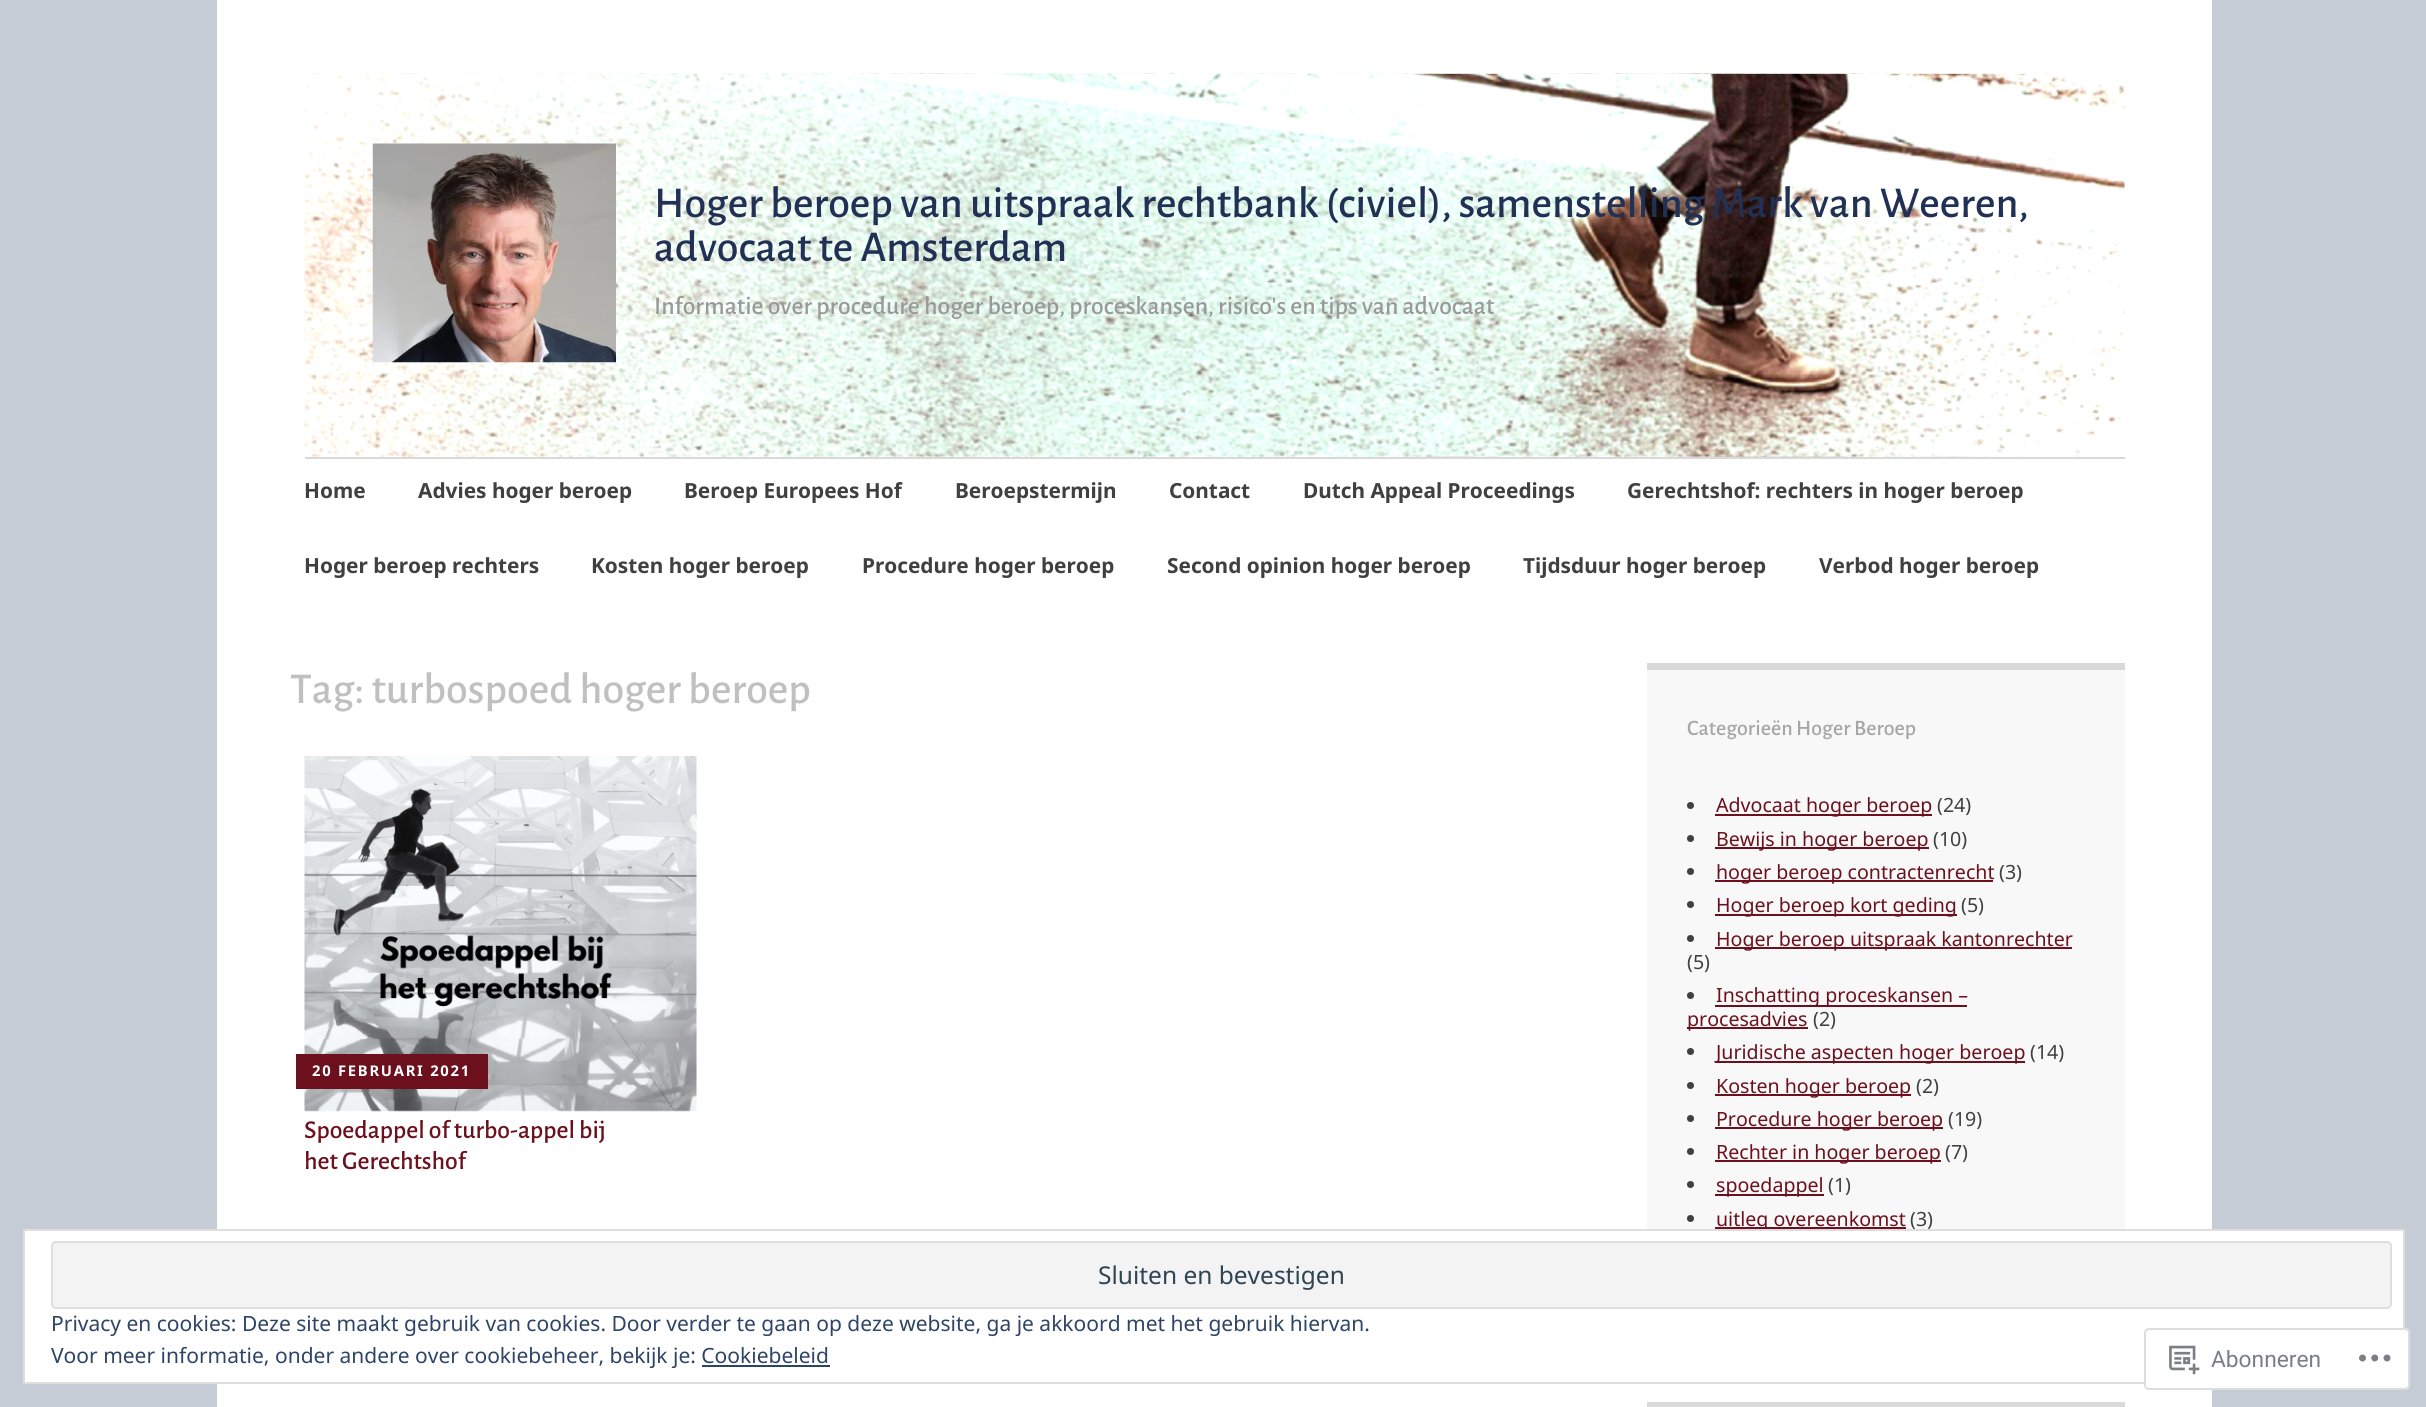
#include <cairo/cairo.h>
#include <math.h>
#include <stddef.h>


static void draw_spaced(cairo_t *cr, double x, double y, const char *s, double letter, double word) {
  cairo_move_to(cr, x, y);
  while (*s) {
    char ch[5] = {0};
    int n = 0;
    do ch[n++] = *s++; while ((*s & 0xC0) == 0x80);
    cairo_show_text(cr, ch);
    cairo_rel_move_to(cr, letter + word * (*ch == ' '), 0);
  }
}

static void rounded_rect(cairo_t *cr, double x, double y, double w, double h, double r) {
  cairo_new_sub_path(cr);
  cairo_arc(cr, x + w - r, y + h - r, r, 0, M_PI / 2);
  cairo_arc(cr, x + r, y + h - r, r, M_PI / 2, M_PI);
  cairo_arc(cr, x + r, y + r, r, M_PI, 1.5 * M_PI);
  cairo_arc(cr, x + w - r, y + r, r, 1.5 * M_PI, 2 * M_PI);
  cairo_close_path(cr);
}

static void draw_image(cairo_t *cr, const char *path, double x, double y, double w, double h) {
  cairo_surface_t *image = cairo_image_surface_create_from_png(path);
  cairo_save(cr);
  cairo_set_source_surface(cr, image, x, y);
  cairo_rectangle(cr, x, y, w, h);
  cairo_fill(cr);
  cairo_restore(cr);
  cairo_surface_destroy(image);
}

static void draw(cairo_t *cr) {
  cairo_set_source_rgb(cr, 197 / 255.0, 204 / 255.0, 214 / 255.0);
  cairo_paint(cr);
  cairo_set_source_rgb(cr, 1, 1, 1);
  cairo_rectangle(cr, 217, 0, 1995, 1407);
  cairo_fill(cr);
  draw_image(cr, "images/1.png", 304, 73, 1821, 384);
  draw_image(cr, "images/2.png", 372, 143, 244, 220);
  cairo_set_source_rgb(cr, 217 / 255.0, 217 / 255.0, 217 / 255.0);
  cairo_rectangle(cr, 305, 457, 1820, 2);
  cairo_fill(cr);
  draw_image(cr, "images/3.png", 304, 756, 393, 356);
  cairo_set_source_rgb(cr, 107 / 255.0, 16 / 255.0, 28 / 255.0);
  cairo_rectangle(cr, 296, 1054, 192, 35);
  cairo_fill(cr);
  cairo_set_source_rgb(cr, 248 / 255.0, 248 / 255.0, 248 / 255.0);
  cairo_rectangle(cr, 1647, 670, 478, 559);
  cairo_fill(cr);
  cairo_set_source_rgb(cr, 217 / 255.0, 217 / 255.0, 217 / 255.0);
  cairo_rectangle(cr, 1647, 663, 478, 7);
  cairo_fill(cr);
  cairo_set_source_rgb(cr, 64 / 255.0, 64 / 255.0, 64 / 255.0);
  cairo_arc(cr, 1690.5, 805.5, 3.5, 0, 2 * M_PI);
  cairo_fill(cr);
  cairo_set_source_rgb(cr, 107 / 255.0, 16 / 255.0, 28 / 255.0);
  cairo_rectangle(cr, 1715, 814, 217, 2);
  cairo_fill(cr);
  cairo_set_source_rgb(cr, 64 / 255.0, 64 / 255.0, 64 / 255.0);
  cairo_arc(cr, 1690.5, 838.5, 3.5, 0, 2 * M_PI);
  cairo_fill(cr);
  cairo_set_source_rgb(cr, 107 / 255.0, 16 / 255.0, 28 / 255.0);
  cairo_rectangle(cr, 1715, 847, 214, 2);
  cairo_fill(cr);
  cairo_set_source_rgb(cr, 64 / 255.0, 64 / 255.0, 64 / 255.0);
  cairo_arc(cr, 1690.5, 871.5, 3.5, 0, 2 * M_PI);
  cairo_fill(cr);
  cairo_set_source_rgb(cr, 107 / 255.0, 16 / 255.0, 28 / 255.0);
  cairo_rectangle(cr, 1715, 880, 278, 2);
  cairo_fill(cr);
  cairo_set_source_rgb(cr, 64 / 255.0, 64 / 255.0, 64 / 255.0);
  cairo_arc(cr, 1690.5, 904.5, 3.5, 0, 2 * M_PI);
  cairo_fill(cr);
  cairo_set_source_rgb(cr, 107 / 255.0, 16 / 255.0, 28 / 255.0);
  cairo_rectangle(cr, 1715, 914, 242, 2);
  cairo_fill(cr);
  cairo_set_source_rgb(cr, 64 / 255.0, 64 / 255.0, 64 / 255.0);
  cairo_arc(cr, 1690.5, 938.5, 3.5, 0, 2 * M_PI);
  cairo_fill(cr);
  cairo_set_source_rgb(cr, 107 / 255.0, 16 / 255.0, 28 / 255.0);
  cairo_rectangle(cr, 1715, 947, 357, 2);
  cairo_fill(cr);
  cairo_set_source_rgb(cr, 64 / 255.0, 64 / 255.0, 64 / 255.0);
  cairo_arc(cr, 1690.5, 995.5, 3.5, 0, 2 * M_PI);
  cairo_fill(cr);
  cairo_set_source_rgb(cr, 107 / 255.0, 16 / 255.0, 28 / 255.0);
  cairo_rectangle(cr, 1715, 1005, 252, 2);
  cairo_fill(cr);
  cairo_rectangle(cr, 1687, 1027, 121, 2);
  cairo_fill(cr);
  cairo_set_source_rgb(cr, 64 / 255.0, 64 / 255.0, 64 / 255.0);
  cairo_arc(cr, 1690.5, 1051.5, 3.5, 0, 2 * M_PI);
  cairo_fill(cr);
  cairo_set_source_rgb(cr, 107 / 255.0, 16 / 255.0, 28 / 255.0);
  cairo_rectangle(cr, 1715, 1061, 310, 2);
  cairo_fill(cr);
  cairo_set_source_rgb(cr, 64 / 255.0, 64 / 255.0, 64 / 255.0);
  cairo_arc(cr, 1690.5, 1085.5, 3.5, 0, 2 * M_PI);
  cairo_fill(cr);
  cairo_set_source_rgb(cr, 107 / 255.0, 16 / 255.0, 28 / 255.0);
  cairo_rectangle(cr, 1715, 1094, 196, 2);
  cairo_fill(cr);
  cairo_set_source_rgb(cr, 64 / 255.0, 64 / 255.0, 64 / 255.0);
  cairo_arc(cr, 1690.5, 1118.5, 3.5, 0, 2 * M_PI);
  cairo_fill(cr);
  cairo_set_source_rgb(cr, 107 / 255.0, 16 / 255.0, 28 / 255.0);
  cairo_rectangle(cr, 1715, 1127, 228, 2);
  cairo_fill(cr);
  cairo_set_source_rgb(cr, 64 / 255.0, 64 / 255.0, 64 / 255.0);
  cairo_arc(cr, 1690.5, 1151.5, 3.5, 0, 2 * M_PI);
  cairo_fill(cr);
  cairo_set_source_rgb(cr, 107 / 255.0, 16 / 255.0, 28 / 255.0);
  cairo_rectangle(cr, 1715, 1160, 226, 2);
  cairo_fill(cr);
  cairo_set_source_rgb(cr, 64 / 255.0, 64 / 255.0, 64 / 255.0);
  cairo_arc(cr, 1690.5, 1184.5, 3.5, 0, 2 * M_PI);
  cairo_fill(cr);
  cairo_set_source_rgb(cr, 107 / 255.0, 16 / 255.0, 28 / 255.0);
  cairo_rectangle(cr, 1715, 1194, 109, 2);
  cairo_fill(cr);
  cairo_set_source_rgb(cr, 64 / 255.0, 64 / 255.0, 64 / 255.0);
  cairo_arc(cr, 1690.5, 1218.5, 3.5, 0, 2 * M_PI);
  cairo_fill(cr);
  cairo_set_source_rgb(cr, 107 / 255.0, 16 / 255.0, 28 / 255.0);
  cairo_rectangle(cr, 1715, 1227, 191, 2);
  cairo_fill(cr);
  cairo_set_source_rgb(cr, 217 / 255.0, 217 / 255.0, 217 / 255.0);
  cairo_rectangle(cr, 1647, 1402, 478, 5);
  cairo_fill(cr);
  cairo_select_font_face(cr, "Alegreya Sans Medium", CAIRO_FONT_SLANT_NORMAL, CAIRO_FONT_WEIGHT_NORMAL);
  cairo_set_font_size(cr, 44.1);
  cairo_set_source_rgb(cr, 33 / 255.0, 48 / 255.0, 85 / 255.0);
  cairo_move_to(cr, 654, 217);
  cairo_show_text(cr, "Hoger beroep van uitspraak rechtbank (civiel), samenstelling Mark van Weeren,");
  cairo_move_to(cr, 654, 261);
  cairo_show_text(cr, "advocaat te Amsterdam");
  cairo_set_font_size(cr, 25.75);
  cairo_set_source_rgb(cr, 153 / 255.0, 153 / 255.0, 153 / 255.0);
  cairo_move_to(cr, 654, 314);
  cairo_show_text(cr, "Informatie over procedure hoger beroep, proceskansen, risico's en tips van advocaat");
  cairo_select_font_face(cr, "Noto Sans", CAIRO_FONT_SLANT_NORMAL, CAIRO_FONT_WEIGHT_BOLD);
  cairo_set_font_size(cr, 20.8);
  cairo_set_source_rgb(cr, 64 / 255.0, 64 / 255.0, 64 / 255.0);
  cairo_move_to(cr, 304, 498);
  cairo_show_text(cr, "Home");
  cairo_move_to(cr, 418, 498);
  cairo_show_text(cr, "Advies hoger beroep");
  cairo_move_to(cr, 684, 498);
  cairo_show_text(cr, "Beroep Europees Hof");
  cairo_move_to(cr, 955, 498);
  cairo_show_text(cr, "Beroepstermijn");
  cairo_move_to(cr, 1169, 498);
  cairo_show_text(cr, "Contact");
  cairo_move_to(cr, 1303, 498);
  cairo_show_text(cr, "Dutch Appeal Proceedings");
  cairo_move_to(cr, 1627, 498);
  cairo_show_text(cr, "Gerechtshof: rechters in hoger beroep");
  cairo_move_to(cr, 304, 573);
  cairo_show_text(cr, "Hoger beroep rechters");
  cairo_move_to(cr, 591, 573);
  cairo_show_text(cr, "Kosten hoger beroep");
  cairo_move_to(cr, 862, 573);
  cairo_show_text(cr, "Procedure hoger beroep");
  cairo_move_to(cr, 1167, 573);
  cairo_show_text(cr, "Second opinion hoger beroep");
  cairo_move_to(cr, 1523, 573);
  cairo_show_text(cr, "Tijdsduur hoger beroep");
  cairo_move_to(cr, 1819, 573);
  cairo_show_text(cr, "Verbod hoger beroep");
  cairo_select_font_face(cr, "Alegreya Sans Medium", CAIRO_FONT_SLANT_NORMAL, CAIRO_FONT_WEIGHT_NORMAL);
  cairo_set_font_size(cr, 44.1);
  cairo_set_source_rgb(cr, 192 / 255.0, 192 / 255.0, 192 / 255.0);
  cairo_move_to(cr, 290, 703);
  cairo_show_text(cr, "Tag: turbospoed hoger beroep");
  cairo_select_font_face(cr, "Noto Sans", CAIRO_FONT_SLANT_NORMAL, CAIRO_FONT_WEIGHT_BOLD);
  cairo_set_font_size(cr, 14.75);
  cairo_set_source_rgb(cr, 1, 1, 1);
  draw_spaced(cr, 312, 1076, "20 FEBRUARI 2021", 1.75, 0);
  cairo_select_font_face(cr, "Alegreya Sans Medium", CAIRO_FONT_SLANT_NORMAL, CAIRO_FONT_WEIGHT_NORMAL);
  cairo_set_font_size(cr, 25.75);
  cairo_set_source_rgb(cr, 107 / 255.0, 16 / 255.0, 28 / 255.0);
  cairo_move_to(cr, 304, 1138);
  cairo_show_text(cr, "Spoedappel of turbo-appel bij");
  cairo_move_to(cr, 304, 1169);
  cairo_show_text(cr, "het Gerechtshof");
  cairo_set_font_size(cr, 22);
  cairo_set_source_rgb(cr, 166 / 255.0, 166 / 255.0, 166 / 255.0);
  cairo_move_to(cr, 1687, 735);
  cairo_show_text(cr, "Categorieën Hoger Beroep");
  cairo_select_font_face(cr, "Noto Sans", CAIRO_FONT_SLANT_NORMAL, CAIRO_FONT_WEIGHT_NORMAL);
  cairo_set_font_size(cr, 19.6);
  cairo_set_source_rgb(cr, 107 / 255.0, 16 / 255.0, 28 / 255.0);
  cairo_move_to(cr, 1716, 812);
  cairo_show_text(cr, "Advocaat hoger beroep");
  cairo_set_source_rgb(cr, 64 / 255.0, 64 / 255.0, 64 / 255.0);
  cairo_move_to(cr, 1937, 812);
  cairo_show_text(cr, "(24)");
  cairo_set_source_rgb(cr, 107 / 255.0, 16 / 255.0, 28 / 255.0);
  cairo_move_to(cr, 1716, 846);
  cairo_show_text(cr, "Bewijs in hoger beroep");
  cairo_set_source_rgb(cr, 64 / 255.0, 64 / 255.0, 64 / 255.0);
  cairo_move_to(cr, 1933, 846);
  cairo_show_text(cr, "(10)");
  cairo_set_source_rgb(cr, 107 / 255.0, 16 / 255.0, 28 / 255.0);
  cairo_move_to(cr, 1716, 879);
  cairo_show_text(cr, "hoger beroep contractenrecht");
  cairo_set_source_rgb(cr, 64 / 255.0, 64 / 255.0, 64 / 255.0);
  cairo_move_to(cr, 1999, 879);
  cairo_show_text(cr, "(3)");
  cairo_set_source_rgb(cr, 107 / 255.0, 16 / 255.0, 28 / 255.0);
  cairo_move_to(cr, 1716, 912);
  cairo_show_text(cr, "Hoger beroep kort geding");
  cairo_set_source_rgb(cr, 64 / 255.0, 64 / 255.0, 64 / 255.0);
  cairo_move_to(cr, 1961, 912);
  cairo_show_text(cr, "(5)");
  cairo_set_source_rgb(cr, 107 / 255.0, 16 / 255.0, 28 / 255.0);
  cairo_move_to(cr, 1716, 946);
  cairo_show_text(cr, "Hoger beroep uitspraak kantonrechter");
  cairo_set_source_rgb(cr, 64 / 255.0, 64 / 255.0, 64 / 255.0);
  cairo_move_to(cr, 1687, 969);
  cairo_show_text(cr, "(5)");
  cairo_set_source_rgb(cr, 107 / 255.0, 16 / 255.0, 28 / 255.0);
  cairo_move_to(cr, 1716, 1002);
  cairo_show_text(cr, "Inschatting proceskansen –");
  cairo_move_to(cr, 1687, 1026);
  cairo_show_text(cr, "procesadvies");
  cairo_set_source_rgb(cr, 64 / 255.0, 64 / 255.0, 64 / 255.0);
  cairo_move_to(cr, 1813, 1026);
  cairo_show_text(cr, "(2)");
  cairo_set_source_rgb(cr, 107 / 255.0, 16 / 255.0, 28 / 255.0);
  cairo_move_to(cr, 1716, 1059);
  cairo_show_text(cr, "Juridische aspecten hoger beroep");
  cairo_set_source_rgb(cr, 64 / 255.0, 64 / 255.0, 64 / 255.0);
  cairo_move_to(cr, 2030, 1059);
  cairo_show_text(cr, "(14)");
  cairo_set_source_rgb(cr, 107 / 255.0, 16 / 255.0, 28 / 255.0);
  cairo_move_to(cr, 1716, 1093);
  cairo_show_text(cr, "Kosten hoger beroep");
  cairo_set_source_rgb(cr, 64 / 255.0, 64 / 255.0, 64 / 255.0);
  cairo_move_to(cr, 1916, 1093);
  cairo_show_text(cr, "(2)");
  cairo_set_source_rgb(cr, 107 / 255.0, 16 / 255.0, 28 / 255.0);
  cairo_move_to(cr, 1716, 1126);
  cairo_show_text(cr, "Procedure hoger beroep");
  cairo_set_source_rgb(cr, 64 / 255.0, 64 / 255.0, 64 / 255.0);
  cairo_move_to(cr, 1948, 1126);
  cairo_show_text(cr, "(19)");
  cairo_set_source_rgb(cr, 107 / 255.0, 16 / 255.0, 28 / 255.0);
  cairo_move_to(cr, 1716, 1159);
  cairo_show_text(cr, "Rechter in hoger beroep");
  cairo_set_source_rgb(cr, 64 / 255.0, 64 / 255.0, 64 / 255.0);
  cairo_move_to(cr, 1945, 1159);
  cairo_show_text(cr, "(7)");
  cairo_set_source_rgb(cr, 107 / 255.0, 16 / 255.0, 28 / 255.0);
  cairo_move_to(cr, 1716, 1192);
  cairo_show_text(cr, "spoedappel");
  cairo_set_source_rgb(cr, 64 / 255.0, 64 / 255.0, 64 / 255.0);
  cairo_move_to(cr, 1828, 1192);
  cairo_show_text(cr, "(1)");
  cairo_set_source_rgb(cr, 107 / 255.0, 16 / 255.0, 28 / 255.0);
  cairo_move_to(cr, 1716, 1226);
  cairo_show_text(cr, "uitleg overeenkomst");
  cairo_set_source_rgb(cr, 64 / 255.0, 64 / 255.0, 64 / 255.0);
  cairo_move_to(cr, 1910, 1226);
  cairo_show_text(cr, "(3)");
  cairo_set_source_rgb(cr, 1, 1, 1);
  cairo_rectangle(cr, 24, 1230, 2380, 153);
  cairo_fill_preserve(cr);
  cairo_set_source_rgb(cr, 222 / 255.0, 222 / 255.0, 222 / 255.0);
  cairo_stroke(cr);
  cairo_set_source_rgb(cr, 243 / 255.0, 243 / 255.0, 243 / 255.0);
  rounded_rect(cr, 52, 1242, 2339, 66, 4);
  cairo_fill_preserve(cr);
  cairo_set_source_rgb(cr, 222 / 255.0, 222 / 255.0, 222 / 255.0);
  cairo_stroke(cr);
  cairo_set_font_size(cr, 24.5);
  cairo_set_source_rgb(cr, 46 / 255.0, 68 / 255.0, 83 / 255.0);
  cairo_move_to(cr, 1098, 1284);
  cairo_show_text(cr, "Sluiten en bevestigen");
  cairo_set_font_size(cr, 21);
  cairo_set_source_rgb(cr, 46 / 255.0, 68 / 255.0, 103 / 255.0);
  cairo_move_to(cr, 51, 1331);
  cairo_show_text(cr, "Privacy en cookies: Deze site maakt gebruik van cookies. Door verder te gaan op deze website, ga je akkoord met het gebruik hiervan.");
  cairo_move_to(cr, 51, 1363);
  cairo_show_text(cr, "Voor meer informatie, onder andere over cookiebeheer, bekijk je: Cookiebeleid");
  cairo_rectangle(cr, 702, 1365, 128, 2);
  cairo_fill(cr);
  cairo_set_source_rgba(cr, 1, 1, 1, 0.98);
  rounded_rect(cr, 2144, 1328, 266, 62, 5);
  cairo_fill(cr);
  rounded_rect(cr, 2145, 1329, 264, 60, 4);
  cairo_set_source_rgba(cr, 220 / 255.0, 220 / 255.0, 222 / 255.0, 0.98);
  cairo_stroke(cr);
  draw_image(cr, "images/4.png", 2169, 1345, 31, 30);
  cairo_select_font_face(cr, "Roboto", CAIRO_FONT_SLANT_NORMAL, CAIRO_FONT_WEIGHT_NORMAL);
  cairo_set_font_size(cr, 22.75);
  cairo_set_source_rgb(cr, 123 / 255.0, 127 / 255.0, 133 / 255.0);
  cairo_move_to(cr, 2211, 1367);
  cairo_show_text(cr, "Abonneren");
  draw_image(cr, "images/5.png", 2359, 1354, 32, 8);
}

int main(void) {
  cairo_surface_t *surface = cairo_image_surface_create(CAIRO_FORMAT_RGB24, 2426, 1407);
  cairo_t *cr = cairo_create(surface);
  cairo_font_options_t *options = cairo_font_options_create();
  cairo_font_options_set_hint_metrics(options, CAIRO_HINT_METRICS_OFF);
  cairo_font_options_set_hint_style(options, CAIRO_HINT_STYLE_NONE);
  cairo_set_font_options(cr, options);
  cairo_set_miter_limit(cr, 4);
  draw(cr);
  cairo_surface_write_to_png(surface, "out.png");
  cairo_font_options_destroy(options);
  cairo_destroy(cr);
  cairo_surface_destroy(surface);
  return 0;
}
